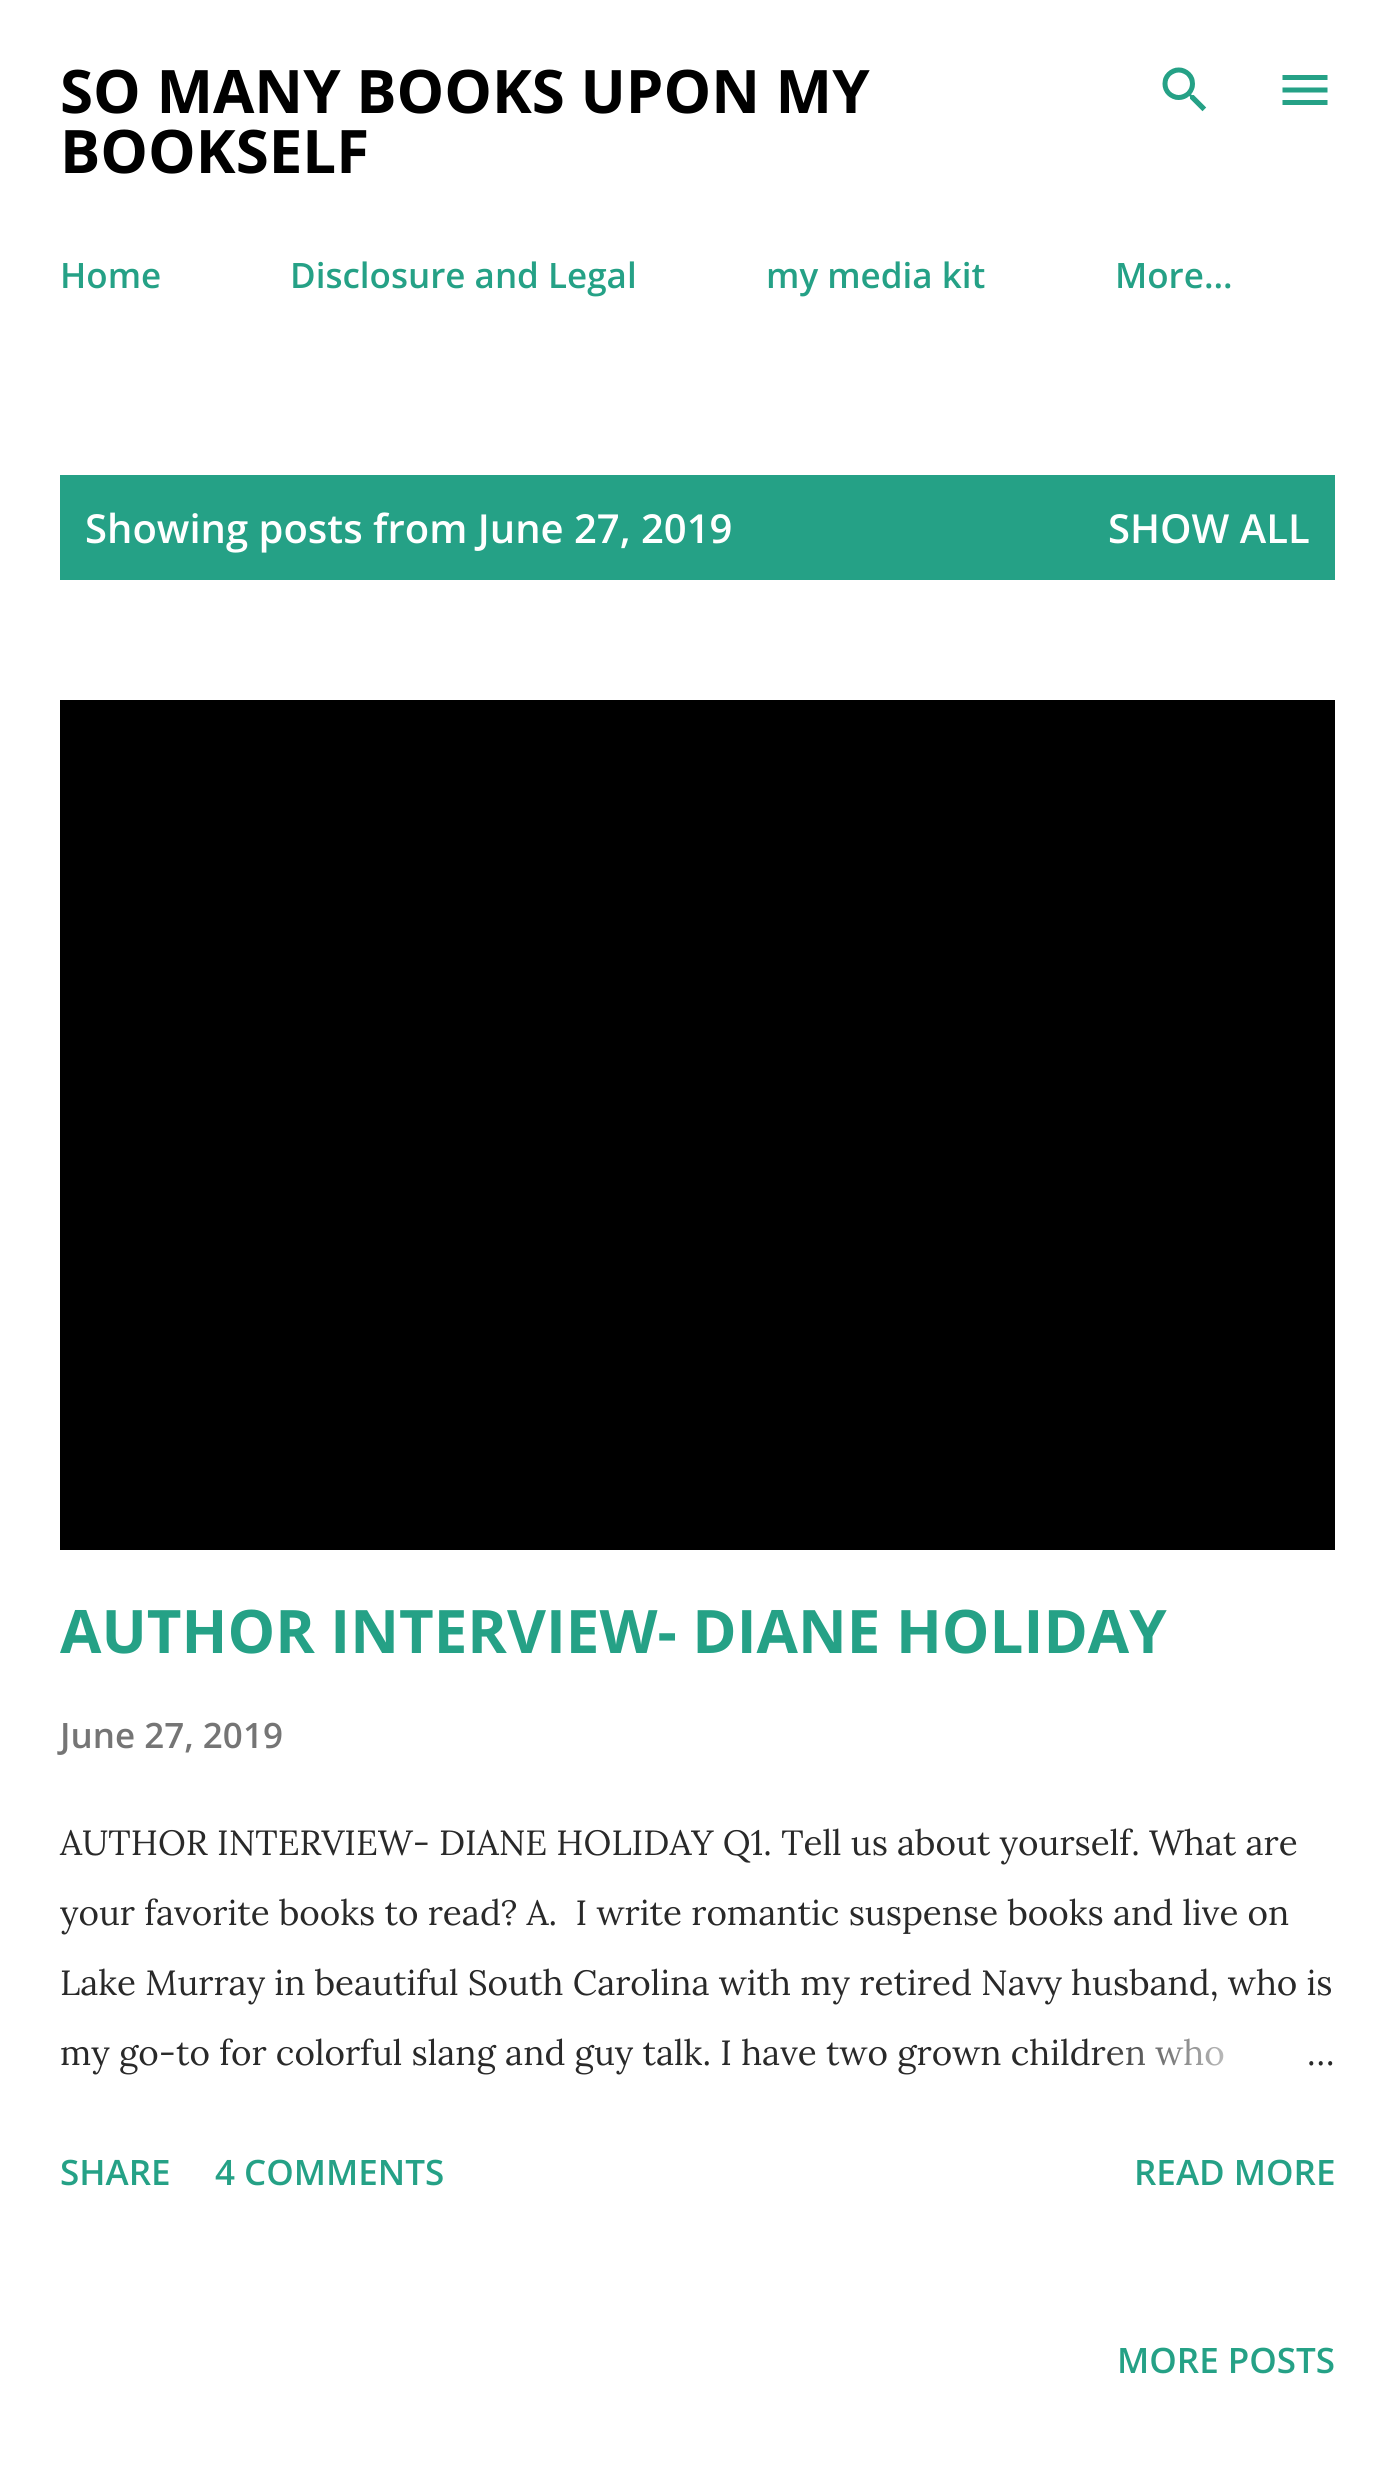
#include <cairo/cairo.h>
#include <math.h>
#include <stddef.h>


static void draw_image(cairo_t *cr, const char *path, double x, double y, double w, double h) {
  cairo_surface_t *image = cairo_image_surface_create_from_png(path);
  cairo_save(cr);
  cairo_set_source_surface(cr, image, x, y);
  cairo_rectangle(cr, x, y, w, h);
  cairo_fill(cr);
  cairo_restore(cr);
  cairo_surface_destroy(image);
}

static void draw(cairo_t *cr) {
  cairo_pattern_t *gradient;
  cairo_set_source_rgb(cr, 1, 1, 1);
  cairo_paint(cr);
  draw_image(cr, "images/1.png", 1162, 67, 45, 45);
  draw_image(cr, "images/2.png", 1282, 75, 46, 30);
  cairo_set_source_rgb(cr, 37 / 255.0, 161 / 255.0, 134 / 255.0);
  cairo_rectangle(cr, 60, 475, 1275, 105);
  cairo_fill(cr);
  cairo_set_source_rgb(cr, 0, 0, 0);
  cairo_rectangle(cr, 60, 700, 1275, 850);
  cairo_fill(cr);
  cairo_select_font_face(cr, "Open Sans", CAIRO_FONT_SLANT_NORMAL, CAIRO_FONT_WEIGHT_BOLD);
  cairo_set_font_size(cr, 60);
  cairo_move_to(cr, 60, 113);
  cairo_show_text(cr, "SO MANY BOOKS UPON MY");
  cairo_move_to(cr, 60, 173);
  cairo_show_text(cr, "BOOKSELF");
  cairo_select_font_face(cr, "Open Sans SemiBold", CAIRO_FONT_SLANT_NORMAL, CAIRO_FONT_WEIGHT_NORMAL);
  cairo_set_font_size(cr, 35);
  cairo_set_source_rgb(cr, 37 / 255.0, 161 / 255.0, 134 / 255.0);
  cairo_move_to(cr, 60, 288);
  cairo_show_text(cr, "Home");
  cairo_move_to(cr, 290, 288);
  cairo_show_text(cr, "Disclosure and Legal");
  cairo_move_to(cr, 766, 288);
  cairo_show_text(cr, "my media kit");
  cairo_move_to(cr, 1115, 288);
  cairo_show_text(cr, "More…");
  cairo_set_font_size(cr, 40);
  cairo_set_source_rgb(cr, 1, 1, 1);
  cairo_move_to(cr, 85, 543);
  cairo_show_text(cr, "Showing posts from June 27, 2019");
  cairo_move_to(cr, 1108, 543);
  cairo_show_text(cr, "SHOW ALL");
  cairo_select_font_face(cr, "Open Sans", CAIRO_FONT_SLANT_NORMAL, CAIRO_FONT_WEIGHT_BOLD);
  cairo_set_font_size(cr, 60);
  cairo_set_source_rgb(cr, 37 / 255.0, 161 / 255.0, 134 / 255.0);
  cairo_move_to(cr, 60, 1653);
  cairo_show_text(cr, "AUTHOR INTERVIEW- DIANE HOLIDAY");
  cairo_select_font_face(cr, "Open Sans SemiBold", CAIRO_FONT_SLANT_NORMAL, CAIRO_FONT_WEIGHT_NORMAL);
  cairo_set_font_size(cr, 35);
  cairo_set_source_rgb(cr, 117 / 255.0, 117 / 255.0, 117 / 255.0);
  cairo_move_to(cr, 60, 1748);
  cairo_show_text(cr, "June 27, 2019");
  cairo_select_font_face(cr, "Lora", CAIRO_FONT_SLANT_NORMAL, CAIRO_FONT_WEIGHT_NORMAL);
  cairo_set_source_rgb(cr, 41 / 255.0, 41 / 255.0, 41 / 255.0);
  cairo_move_to(cr, 60, 1855);
  cairo_show_text(cr, "AUTHOR INTERVIEW- DIANE HOLIDAY Q1. Tell us about yourself. What are");
  cairo_move_to(cr, 60, 1925);
  cairo_show_text(cr, "your favorite books to read? A.  I write romantic suspense books and live on");
  cairo_move_to(cr, 60, 1995);
  cairo_show_text(cr, "Lake Murray in beautiful South Carolina with my retired Navy husband, who is");
  cairo_move_to(cr, 60, 2065);
  cairo_show_text(cr, "my go-to for colorful slang and guy talk. I have two grown children who");
  gradient = cairo_pattern_create_linear(1335, 2053, 1095, 2053);
  cairo_pattern_add_color_stop_rgba(gradient, 0, 1, 1, 1, 1);
  cairo_pattern_add_color_stop_rgba(gradient, 0.2, 1, 1, 1, 1);
  cairo_pattern_add_color_stop_rgba(gradient, 1, 1, 1, 1, 0);
  cairo_set_source(cr, gradient);
  cairo_pattern_destroy(gradient);
  cairo_rectangle(cr, 1099, 2038, 125, 28);
  cairo_fill(cr);
  cairo_set_source_rgb(cr, 41 / 255.0, 41 / 255.0, 41 / 255.0);
  cairo_move_to(cr, 1307, 2065);
  cairo_show_text(cr, "…");
  cairo_select_font_face(cr, "Open Sans SemiBold", CAIRO_FONT_SLANT_NORMAL, CAIRO_FONT_WEIGHT_NORMAL);
  cairo_set_source_rgb(cr, 37 / 255.0, 161 / 255.0, 134 / 255.0);
  cairo_move_to(cr, 60, 2185);
  cairo_show_text(cr, "SHARE");
  cairo_move_to(cr, 215, 2185);
  cairo_show_text(cr, "4 COMMENTS");
  cairo_move_to(cr, 1134, 2185);
  cairo_show_text(cr, "READ MORE");
  cairo_move_to(cr, 1117, 2373);
  cairo_show_text(cr, "MORE POSTS");
}

int main(void) {
  cairo_surface_t *surface = cairo_image_surface_create(CAIRO_FORMAT_RGB24, 1393, 2489);
  cairo_t *cr = cairo_create(surface);
  cairo_font_options_t *options = cairo_font_options_create();
  cairo_font_options_set_hint_metrics(options, CAIRO_HINT_METRICS_OFF);
  cairo_font_options_set_hint_style(options, CAIRO_HINT_STYLE_NONE);
  cairo_set_font_options(cr, options);
  cairo_set_miter_limit(cr, 4);
  draw(cr);
  cairo_surface_write_to_png(surface, "out.png");
  cairo_font_options_destroy(options);
  cairo_destroy(cr);
  cairo_surface_destroy(surface);
  return 0;
}
